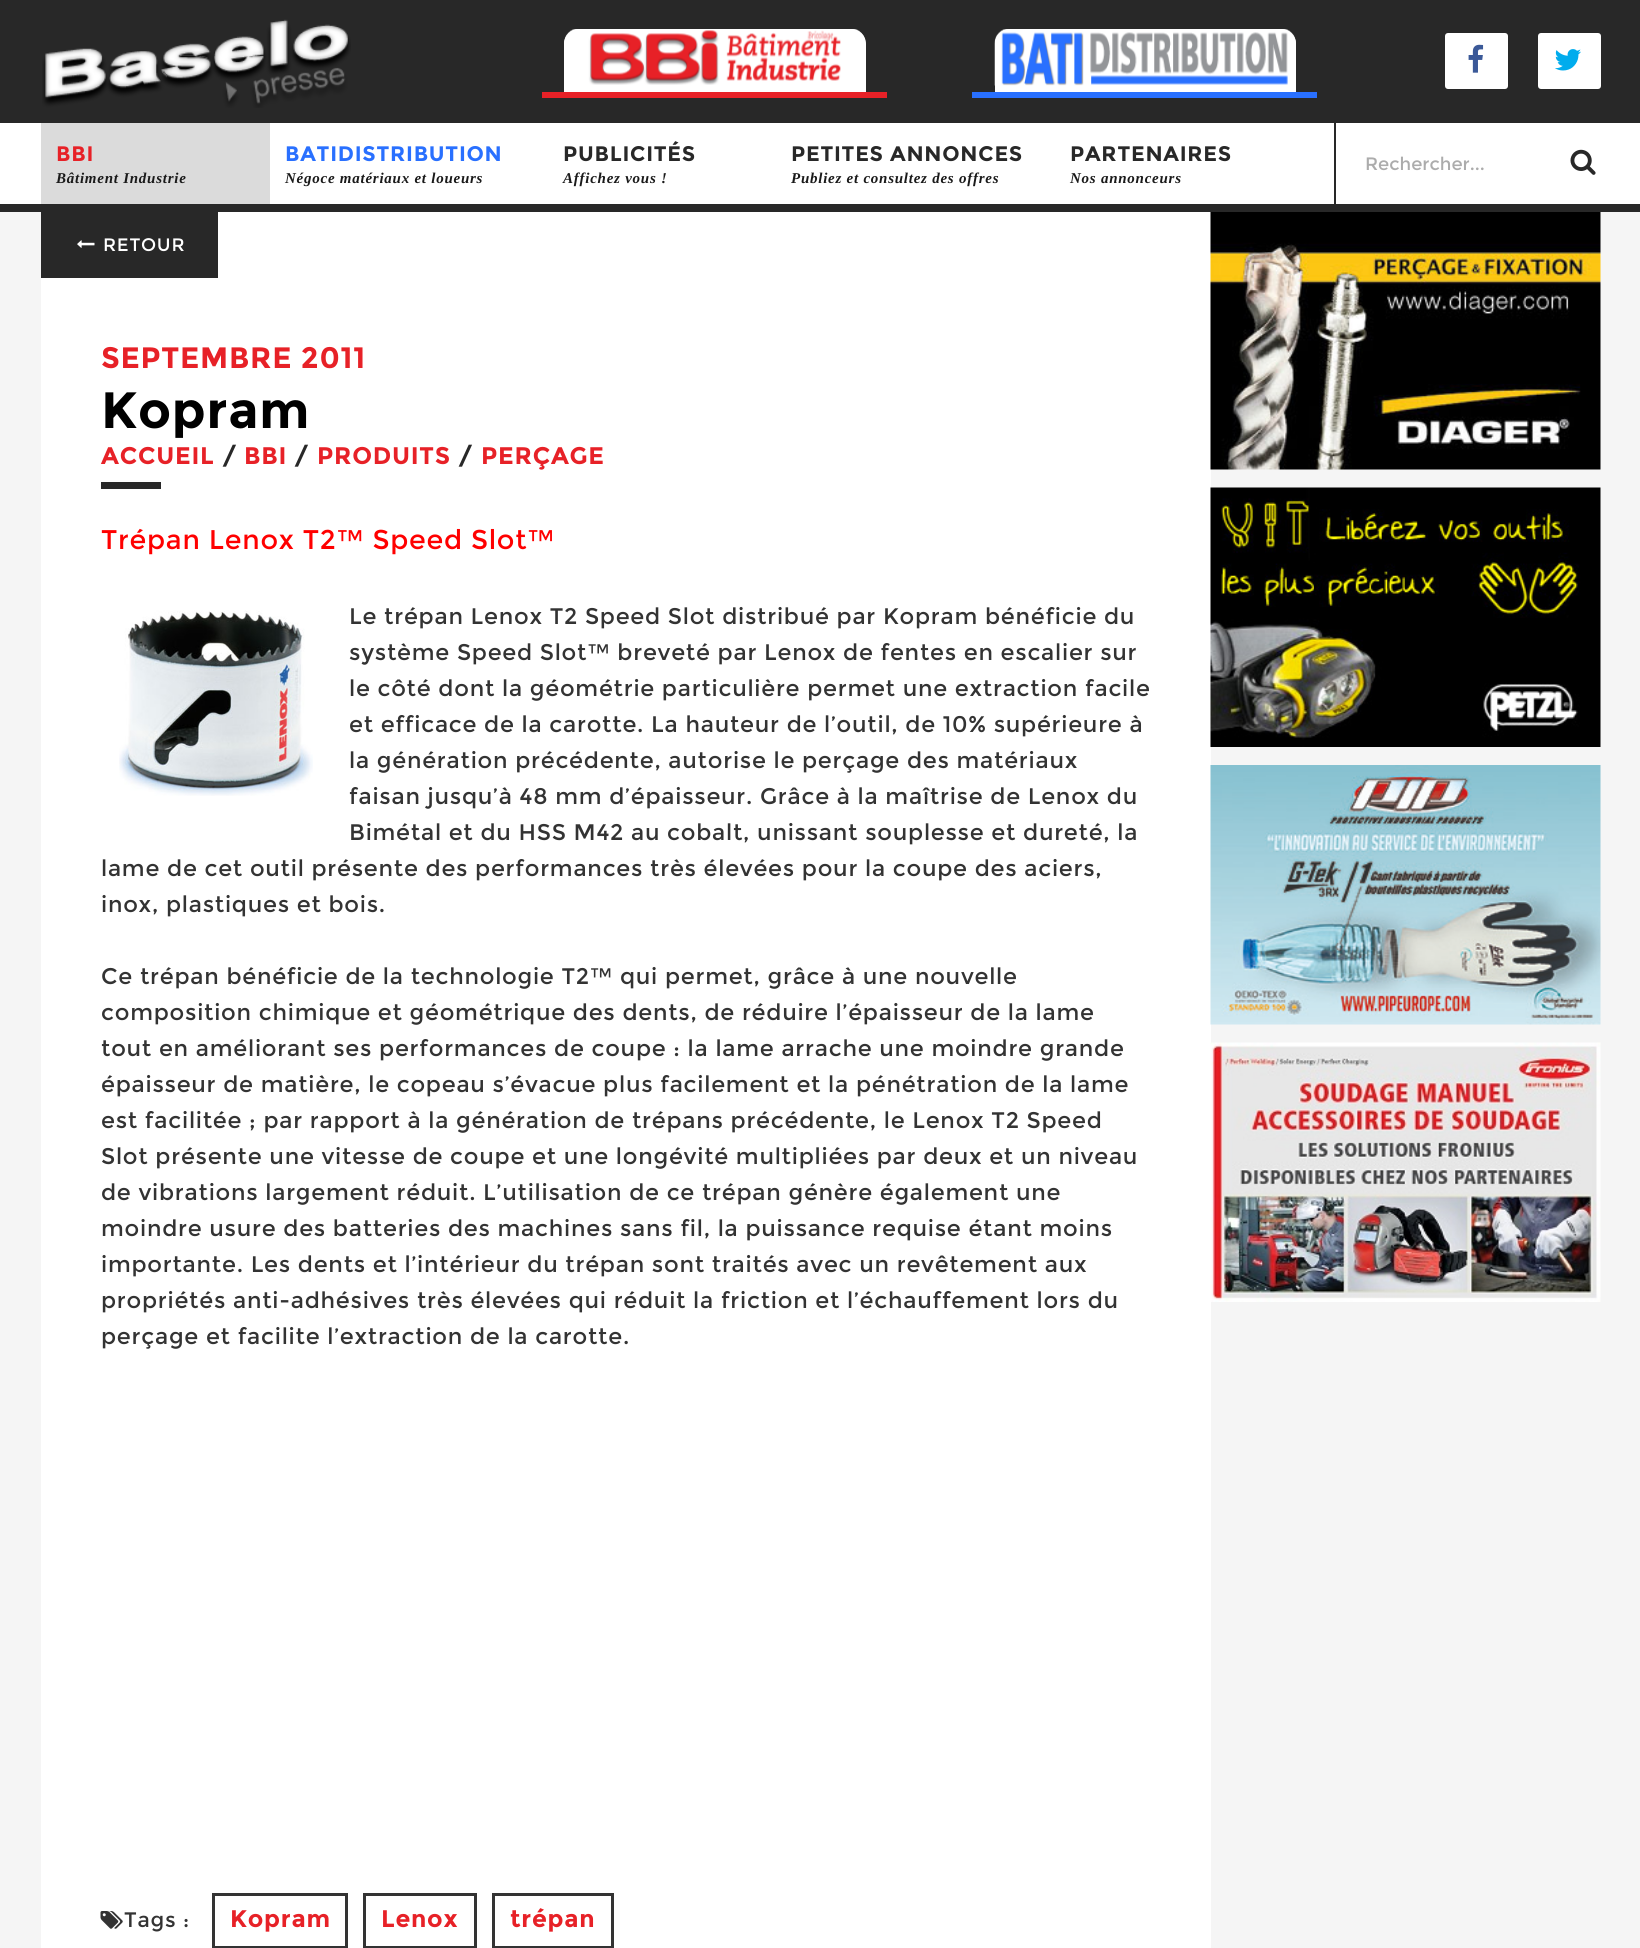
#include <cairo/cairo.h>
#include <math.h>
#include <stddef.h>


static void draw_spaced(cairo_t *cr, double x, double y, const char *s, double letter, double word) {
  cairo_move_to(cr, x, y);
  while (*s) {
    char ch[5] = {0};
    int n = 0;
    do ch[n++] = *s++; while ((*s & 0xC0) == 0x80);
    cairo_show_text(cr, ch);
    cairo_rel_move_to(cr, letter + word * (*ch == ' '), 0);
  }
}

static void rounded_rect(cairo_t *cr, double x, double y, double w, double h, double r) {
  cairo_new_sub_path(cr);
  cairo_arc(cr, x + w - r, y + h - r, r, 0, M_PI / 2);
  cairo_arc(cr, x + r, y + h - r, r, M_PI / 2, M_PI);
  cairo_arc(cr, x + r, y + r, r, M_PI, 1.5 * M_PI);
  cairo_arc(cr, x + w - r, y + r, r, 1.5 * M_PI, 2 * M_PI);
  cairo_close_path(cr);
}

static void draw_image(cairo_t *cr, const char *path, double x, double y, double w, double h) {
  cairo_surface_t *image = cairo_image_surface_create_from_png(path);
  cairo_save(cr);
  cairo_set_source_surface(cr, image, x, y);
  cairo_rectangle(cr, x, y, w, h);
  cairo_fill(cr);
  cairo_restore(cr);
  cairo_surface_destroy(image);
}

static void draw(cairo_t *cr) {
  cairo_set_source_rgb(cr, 245 / 255.0, 245 / 255.0, 245 / 255.0);
  cairo_paint(cr);
  cairo_set_source_rgb(cr, 40 / 255.0, 40 / 255.0, 40 / 255.0);
  cairo_rectangle(cr, 0, 0, 1640, 123);
  cairo_fill(cr);
  draw_image(cr, "images/1.png", 42, 19, 309, 89);
  cairo_set_source_rgb(cr, 1, 1, 1);
  cairo_new_path(cr);
  cairo_move_to(cr, 579, 29);
  cairo_line_to(cr, 851, 29);
  cairo_curve_to(cr, 859.5, 29, 866, 35.5, 866, 44);
  cairo_line_to(cr, 866, 93);
  cairo_line_to(cr, 564, 93);
  cairo_line_to(cr, 564, 44);
  cairo_curve_to(cr, 564, 35.5, 570.5, 29, 579, 29);
  cairo_close_path(cr);
  cairo_fill(cr);
  draw_image(cr, "images/2.png", 564, 29, 302, 56);
  cairo_set_source_rgb(cr, 231 / 255.0, 33 / 255.0, 39 / 255.0);
  cairo_rectangle(cr, 542, 92, 345, 6);
  cairo_fill(cr);
  cairo_set_source_rgb(cr, 1, 1, 1);
  cairo_new_path(cr);
  cairo_move_to(cr, 1010, 29);
  cairo_line_to(cr, 1281, 29);
  cairo_curve_to(cr, 1289.5, 29, 1296, 35.5, 1296, 44);
  cairo_line_to(cr, 1296, 93);
  cairo_line_to(cr, 995, 93);
  cairo_line_to(cr, 995, 44);
  cairo_curve_to(cr, 995, 35.5, 1001.5, 29, 1010, 29);
  cairo_close_path(cr);
  cairo_fill(cr);
  draw_image(cr, "images/3.png", 994, 29, 302, 57);
  cairo_set_source_rgb(cr, 41 / 255.0, 112 / 255.0, 1);
  cairo_rectangle(cr, 972, 92, 345, 6);
  cairo_fill(cr);
  cairo_set_source_rgb(cr, 1, 1, 1);
  rounded_rect(cr, 1445, 33, 63, 56, 3);
  cairo_fill(cr);
  draw_image(cr, "images/4.png", 1468, 44, 16, 29);
  rounded_rect(cr, 1538, 33, 63, 56, 3);
  cairo_fill(cr);
  draw_image(cr, "images/5.png", 1555, 49, 26, 22);
  cairo_rectangle(cr, 0, 123, 1640, 81);
  cairo_fill(cr);
  cairo_set_source_rgb(cr, 40 / 255.0, 40 / 255.0, 40 / 255.0);
  cairo_rectangle(cr, 0, 204, 1640, 8);
  cairo_fill(cr);
  cairo_set_source_rgb(cr, 219 / 255.0, 219 / 255.0, 219 / 255.0);
  cairo_rectangle(cr, 41, 123, 229, 81);
  cairo_fill(cr);
  cairo_set_source_rgb(cr, 40 / 255.0, 40 / 255.0, 40 / 255.0);
  cairo_rectangle(cr, 1334, 123, 2, 81);
  cairo_fill(cr);
  draw_image(cr, "images/6.png", 1570, 149, 26, 26);
  cairo_set_source_rgb(cr, 1, 1, 1);
  cairo_rectangle(cr, 41, 212, 1170, 1736);
  cairo_fill(cr);
  cairo_set_source_rgb(cr, 40 / 255.0, 40 / 255.0, 40 / 255.0);
  cairo_rectangle(cr, 41, 212, 177, 66);
  cairo_fill(cr);
  draw_image(cr, "images/7.png", 77, 240, 18, 8);
  cairo_rectangle(cr, 101, 482, 60, 7);
  cairo_fill(cr);
  draw_image(cr, "images/8.png", 119, 610, 194, 186);
  draw_image(cr, "images/9.png", 100, 1911, 23, 18);
  cairo_rectangle(cr, 213.5, 1894.5, 133, 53);
  cairo_set_source_rgb(cr, 51 / 255.0, 51 / 255.0, 51 / 255.0);
  cairo_set_line_width(cr, 3);
  cairo_stroke(cr);
  cairo_rectangle(cr, 364.5, 1894.5, 111, 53);
  cairo_stroke(cr);
  cairo_rectangle(cr, 493.5, 1894.5, 119, 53);
  cairo_stroke(cr);
  draw_image(cr, "images/10.png", 1210, 212, 391, 258);
  draw_image(cr, "images/11.png", 1210, 487, 391, 260);
  draw_image(cr, "images/12.png", 1210, 765, 391, 260);
  draw_image(cr, "images/13.png", 1210, 1042, 391, 260);
  cairo_select_font_face(cr, "Montserrat", CAIRO_FONT_SLANT_NORMAL, CAIRO_FONT_WEIGHT_BOLD);
  cairo_set_font_size(cr, 21);
  cairo_set_source_rgb(cr, 231 / 255.0, 33 / 255.0, 39 / 255.0);
  draw_spaced(cr, 56, 161, "BBI", 0.75, 0);
  cairo_select_font_face(cr, "Liberation Serif", CAIRO_FONT_SLANT_ITALIC, CAIRO_FONT_WEIGHT_BOLD);
  cairo_set_font_size(cr, 15);
  cairo_set_source_rgb(cr, 26 / 255.0, 26 / 255.0, 26 / 255.0);
  draw_spaced(cr, 56, 183, "Bâtiment Industrie", 0.75, 0);
  cairo_select_font_face(cr, "Montserrat", CAIRO_FONT_SLANT_NORMAL, CAIRO_FONT_WEIGHT_BOLD);
  cairo_set_font_size(cr, 21);
  cairo_set_source_rgb(cr, 41 / 255.0, 112 / 255.0, 1);
  draw_spaced(cr, 285, 161, "BATIDISTRIBUTION", 0.75, 0);
  cairo_select_font_face(cr, "Liberation Serif", CAIRO_FONT_SLANT_ITALIC, CAIRO_FONT_WEIGHT_BOLD);
  cairo_set_font_size(cr, 15);
  cairo_set_source_rgb(cr, 26 / 255.0, 26 / 255.0, 26 / 255.0);
  draw_spaced(cr, 285, 183, "Négoce matériaux et loueurs", 0.75, 0);
  cairo_select_font_face(cr, "Montserrat", CAIRO_FONT_SLANT_NORMAL, CAIRO_FONT_WEIGHT_BOLD);
  cairo_set_font_size(cr, 21);
  cairo_set_source_rgb(cr, 40 / 255.0, 40 / 255.0, 40 / 255.0);
  draw_spaced(cr, 563, 161, "PUBLICITÉS", 0.75, 0);
  cairo_select_font_face(cr, "Liberation Serif", CAIRO_FONT_SLANT_ITALIC, CAIRO_FONT_WEIGHT_BOLD);
  cairo_set_font_size(cr, 15);
  cairo_set_source_rgb(cr, 26 / 255.0, 26 / 255.0, 26 / 255.0);
  draw_spaced(cr, 563, 183, "Affichez vous !", 0.75, 0);
  cairo_select_font_face(cr, "Montserrat", CAIRO_FONT_SLANT_NORMAL, CAIRO_FONT_WEIGHT_BOLD);
  cairo_set_font_size(cr, 21);
  cairo_set_source_rgb(cr, 40 / 255.0, 40 / 255.0, 40 / 255.0);
  draw_spaced(cr, 791, 161, "PETITES ANNONCES", 0.75, 0);
  cairo_select_font_face(cr, "Liberation Serif", CAIRO_FONT_SLANT_ITALIC, CAIRO_FONT_WEIGHT_BOLD);
  cairo_set_font_size(cr, 15);
  cairo_set_source_rgb(cr, 26 / 255.0, 26 / 255.0, 26 / 255.0);
  draw_spaced(cr, 791, 183, "Publiez et consultez des offres", 0.75, 0);
  cairo_select_font_face(cr, "Montserrat", CAIRO_FONT_SLANT_NORMAL, CAIRO_FONT_WEIGHT_BOLD);
  cairo_set_font_size(cr, 21);
  cairo_set_source_rgb(cr, 40 / 255.0, 40 / 255.0, 40 / 255.0);
  draw_spaced(cr, 1070, 161, "PARTENAIRES", 0.75, 0);
  cairo_select_font_face(cr, "Liberation Serif", CAIRO_FONT_SLANT_ITALIC, CAIRO_FONT_WEIGHT_BOLD);
  cairo_set_font_size(cr, 15);
  cairo_set_source_rgb(cr, 26 / 255.0, 26 / 255.0, 26 / 255.0);
  draw_spaced(cr, 1070, 183, "Nos annonceurs", 0.75, 0);
  cairo_select_font_face(cr, "Montserrat", CAIRO_FONT_SLANT_NORMAL, CAIRO_FONT_WEIGHT_NORMAL);
  cairo_set_font_size(cr, 18);
  cairo_set_source_rgb(cr, 172 / 255.0, 172 / 255.0, 172 / 255.0);
  cairo_move_to(cr, 1365, 170);
  cairo_show_text(cr, "Rechercher...");
  cairo_set_source_rgb(cr, 1, 1, 1);
  draw_spaced(cr, 103, 251, "RETOUR", 0.75, 0);
  cairo_select_font_face(cr, "Montserrat", CAIRO_FONT_SLANT_NORMAL, CAIRO_FONT_WEIGHT_BOLD);
  cairo_set_font_size(cr, 29.5);
  cairo_set_source_rgb(cr, 231 / 255.0, 33 / 255.0, 39 / 255.0);
  draw_spaced(cr, 101, 368, "SEPTEMBRE 2011", 0.75, 0);
  cairo_set_font_size(cr, 51);
  cairo_set_source_rgb(cr, 0, 0, 0);
  draw_spaced(cr, 101, 428, "Kopram", 0.75, 0);
  cairo_set_font_size(cr, 24);
  cairo_set_source_rgb(cr, 231 / 255.0, 33 / 255.0, 39 / 255.0);
  draw_spaced(cr, 101, 464, "ACCUEIL", 0.75, 0);
  cairo_set_source_rgb(cr, 40 / 255.0, 40 / 255.0, 40 / 255.0);
  draw_spaced(cr, 222, 464, "/", 0.75, 0);
  cairo_set_source_rgb(cr, 231 / 255.0, 33 / 255.0, 39 / 255.0);
  draw_spaced(cr, 244, 464, "BBI", 0.75, 0);
  cairo_set_source_rgb(cr, 40 / 255.0, 40 / 255.0, 40 / 255.0);
  draw_spaced(cr, 294, 464, "/", 0.75, 0);
  cairo_set_source_rgb(cr, 231 / 255.0, 33 / 255.0, 39 / 255.0);
  draw_spaced(cr, 317, 464, "PRODUITS", 0.75, 0);
  cairo_set_source_rgb(cr, 40 / 255.0, 40 / 255.0, 40 / 255.0);
  draw_spaced(cr, 458, 464, "/", 0.75, 0);
  cairo_set_source_rgb(cr, 231 / 255.0, 33 / 255.0, 39 / 255.0);
  draw_spaced(cr, 481, 464, "PERÇAGE", 0.75, 0);
  cairo_select_font_face(cr, "Montserrat", CAIRO_FONT_SLANT_NORMAL, CAIRO_FONT_WEIGHT_NORMAL);
  cairo_set_font_size(cr, 27);
  cairo_set_source_rgb(cr, 1, 0, 0);
  draw_spaced(cr, 101, 549, "Trépan Lenox T2™ Speed Slot™", 0.75, 0);
  cairo_set_font_size(cr, 22.5);
  cairo_set_source_rgb(cr, 51 / 255.0, 51 / 255.0, 51 / 255.0);
  draw_spaced(cr, 349, 624, "Le trépan Lenox T2 Speed Slot distribué par Kopram bénéficie du", 0.75, 0);
  draw_spaced(cr, 349, 660, "système Speed Slot™ breveté par Lenox de fentes en escalier sur", 0.75, 0);
  draw_spaced(cr, 349, 696, "le côté dont la géométrie particulière permet une extraction facile", 0.75, 0);
  draw_spaced(cr, 349, 732, "et efficace de la carotte. La hauteur de l’outil, de 10% supérieure à", 0.75, 0);
  draw_spaced(cr, 349, 768, "la génération précédente, autorise le perçage des matériaux", 0.75, 0);
  draw_spaced(cr, 349, 804, "faisan jusqu’à 48 mm d’épaisseur. Grâce à la maîtrise de Lenox du", 0.75, 0);
  draw_spaced(cr, 349, 840, "Bimétal et du HSS M42 au cobalt, unissant souplesse et dureté, la", 0.75, 0);
  draw_spaced(cr, 101, 876, "lame de cet outil présente des performances très élevées pour la coupe des aciers,", 0.75, 0);
  draw_spaced(cr, 101, 912, "inox, plastiques et bois.", 0.75, 0);
  draw_spaced(cr, 101, 984, "Ce trépan bénéficie de la technologie T2™ qui permet, grâce à une nouvelle", 0.75, 0);
  draw_spaced(cr, 101, 1020, "composition chimique et géométrique des dents, de réduire l’épaisseur de la lame", 0.75, 0);
  draw_spaced(cr, 101, 1056, "tout en améliorant ses performances de coupe : la lame arrache une moindre grande", 0.75, 0);
  draw_spaced(cr, 101, 1092, "épaisseur de matière, le copeau s’évacue plus facilement et la pénétration de la lame", 0.75, 0);
  draw_spaced(cr, 101, 1128, "est facilitée ; par rapport à la génération de trépans précédente, le Lenox T2 Speed", 0.75, 0);
  draw_spaced(cr, 101, 1164, "Slot présente une vitesse de coupe et une longévité multipliées par deux et un niveau", 0.75, 0);
  draw_spaced(cr, 101, 1200, "de vibrations largement réduit. L’utilisation de ce trépan génère également une", 0.75, 0);
  draw_spaced(cr, 101, 1236, "moindre usure des batteries des machines sans fil, la puissance requise étant moins", 0.75, 0);
  draw_spaced(cr, 101, 1272, "importante. Les dents et l’intérieur du trépan sont traités avec un revêtement aux", 0.75, 0);
  draw_spaced(cr, 101, 1308, "propriétés anti-adhésives très élevées qui réduit la friction et l’échauffement lors du", 0.75, 0);
  draw_spaced(cr, 101, 1344, "perçage et facilite l’extraction de la carotte.", 0.75, 0);
  cairo_set_font_size(cr, 21);
  draw_spaced(cr, 124, 1927, "Tags :", 0.75, 0);
  cairo_select_font_face(cr, "Montserrat", CAIRO_FONT_SLANT_NORMAL, CAIRO_FONT_WEIGHT_BOLD);
  cairo_set_font_size(cr, 24);
  cairo_set_source_rgb(cr, 231 / 255.0, 33 / 255.0, 39 / 255.0);
  draw_spaced(cr, 230, 1927, "Kopram", 0.75, 0);
  draw_spaced(cr, 381, 1927, "Lenox", 0.75, 0);
  draw_spaced(cr, 510, 1927, "trépan", 0.75, 0);
}

int main(void) {
  cairo_surface_t *surface = cairo_image_surface_create(CAIRO_FORMAT_RGB24, 1640, 1948);
  cairo_t *cr = cairo_create(surface);
  cairo_font_options_t *options = cairo_font_options_create();
  cairo_font_options_set_hint_metrics(options, CAIRO_HINT_METRICS_OFF);
  cairo_font_options_set_hint_style(options, CAIRO_HINT_STYLE_NONE);
  cairo_set_font_options(cr, options);
  cairo_set_miter_limit(cr, 4);
  draw(cr);
  cairo_surface_write_to_png(surface, "out.png");
  cairo_font_options_destroy(options);
  cairo_destroy(cr);
  cairo_surface_destroy(surface);
  return 0;
}
